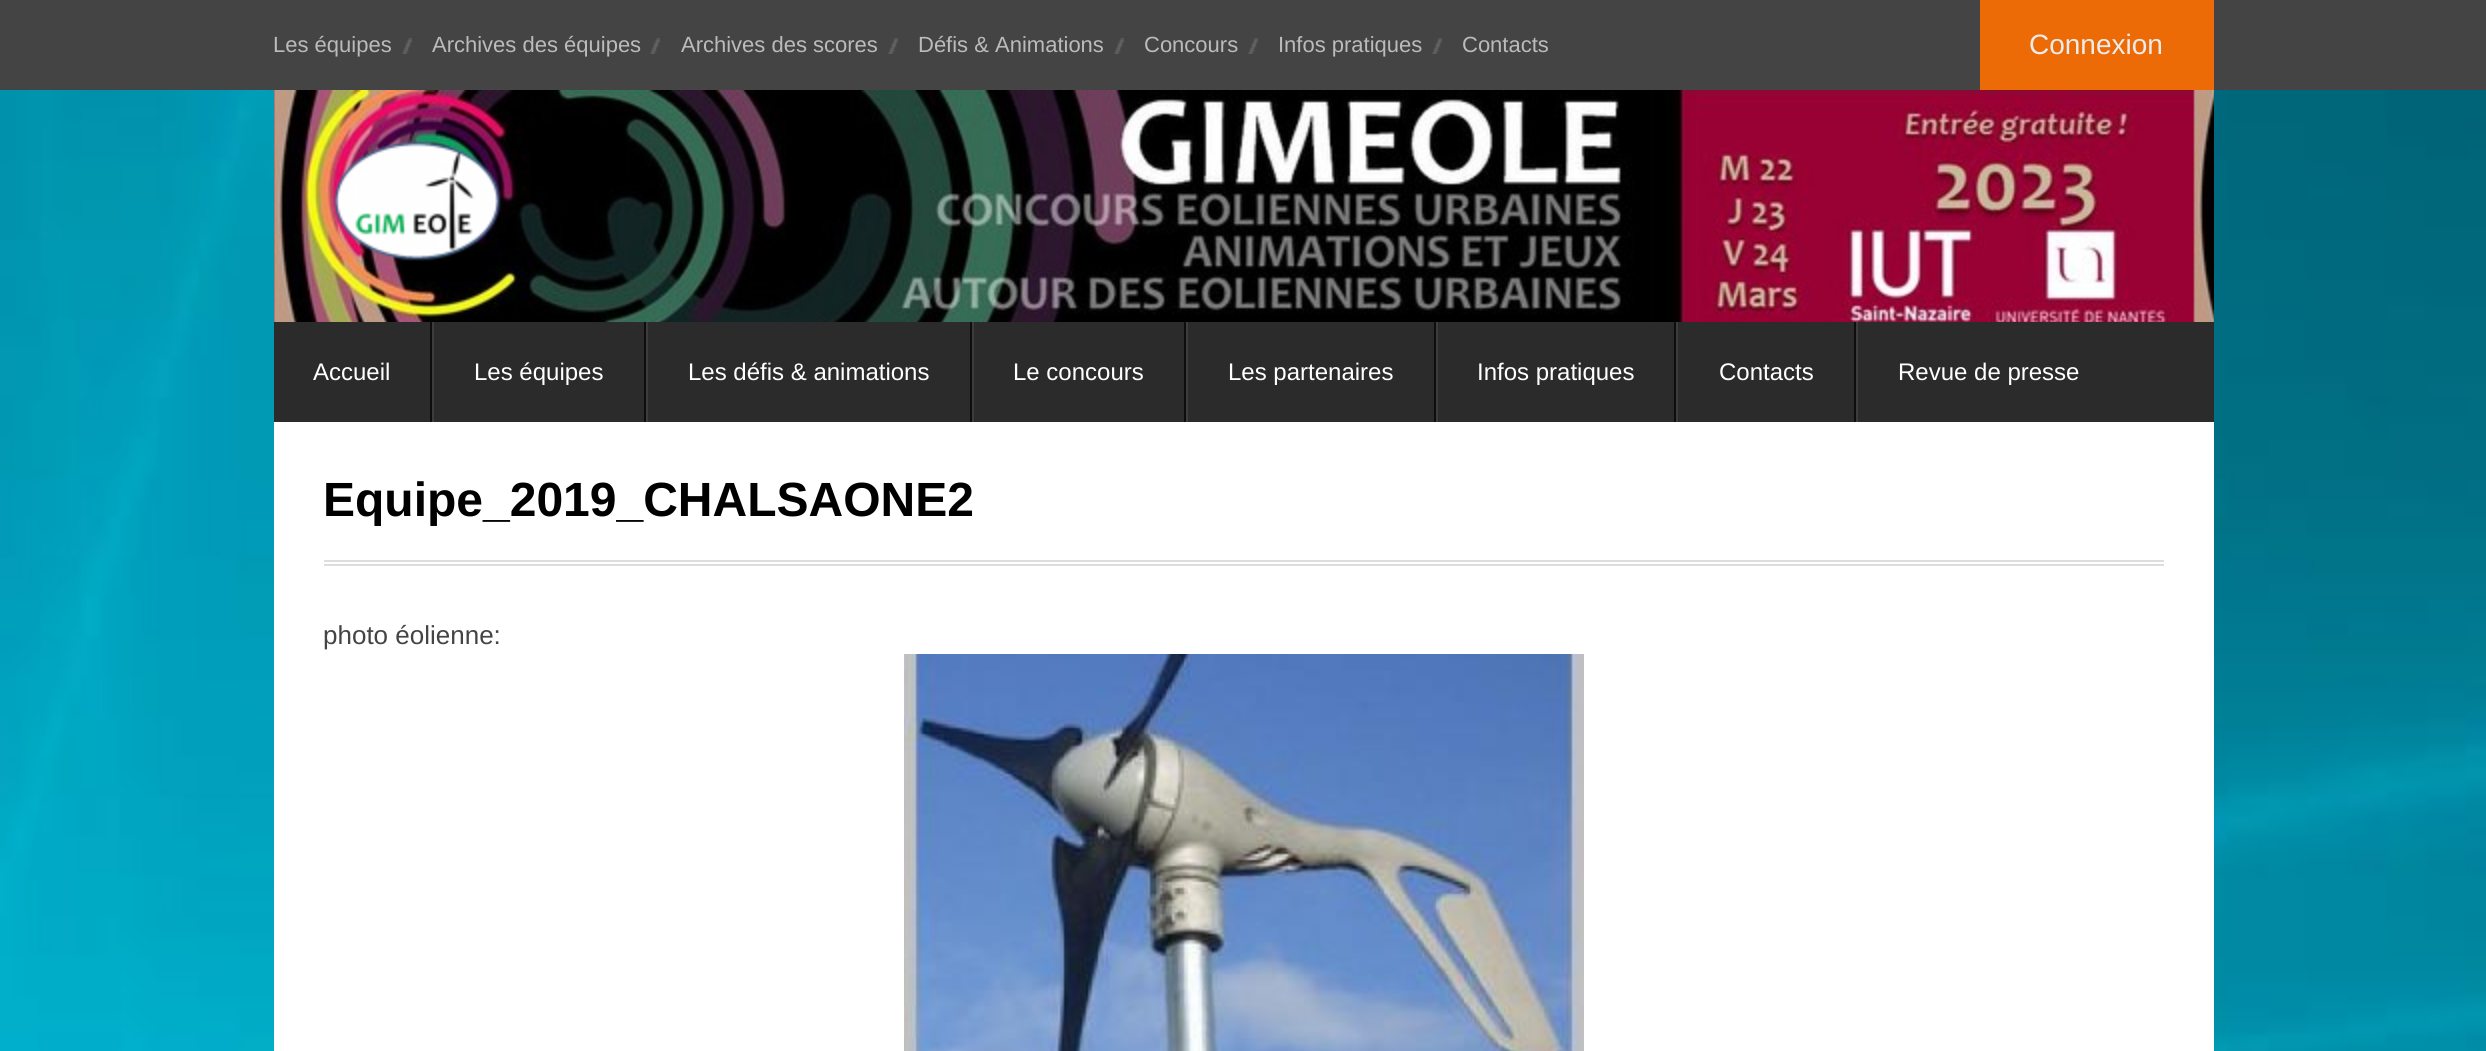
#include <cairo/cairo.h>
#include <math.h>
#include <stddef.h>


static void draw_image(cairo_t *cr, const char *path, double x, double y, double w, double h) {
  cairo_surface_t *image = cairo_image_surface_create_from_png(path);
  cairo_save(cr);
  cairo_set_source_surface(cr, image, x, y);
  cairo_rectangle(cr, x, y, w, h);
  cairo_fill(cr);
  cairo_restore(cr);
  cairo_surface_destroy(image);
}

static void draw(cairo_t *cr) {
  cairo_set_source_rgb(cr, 1, 1, 1);
  cairo_paint(cr);
  draw_image(cr, "images/1.png", 0, 90, 2486, 961);
  cairo_set_source_rgb(cr, 68 / 255.0, 68 / 255.0, 68 / 255.0);
  cairo_rectangle(cr, 0, 0, 2486, 90);
  cairo_fill(cr);
  draw_image(cr, "images/2.png", 402, 38, 10, 16);
  draw_image(cr, "images/2.png", 650, 38, 10, 16);
  draw_image(cr, "images/2.png", 888, 38, 10, 16);
  draw_image(cr, "images/2.png", 1114, 38, 10, 16);
  draw_image(cr, "images/2.png", 1248, 38, 10, 16);
  draw_image(cr, "images/2.png", 1432, 38, 10, 16);
  cairo_set_source_rgb(cr, 236 / 255.0, 107 / 255.0, 7 / 255.0);
  cairo_rectangle(cr, 1980, 0, 234, 90);
  cairo_fill(cr);
  draw_image(cr, "images/3.png", 274, 90, 1940, 232);
  draw_image(cr, "images/4.png", 333, 141, 168, 120);
  cairo_set_source_rgb(cr, 43 / 255.0, 43 / 255.0, 43 / 255.0);
  cairo_rectangle(cr, 274, 322, 1940, 100);
  cairo_fill(cr);
  cairo_set_source_rgb(cr, 13 / 255.0, 13 / 255.0, 13 / 255.0);
  cairo_rectangle(cr, 430, 322, 2, 100);
  cairo_fill(cr);
  cairo_rectangle(cr, 644, 322, 2, 100);
  cairo_fill(cr);
  cairo_set_source_rgb(cr, 60 / 255.0, 60 / 255.0, 60 / 255.0);
  cairo_rectangle(cr, 432, 322, 2, 100);
  cairo_fill(cr);
  cairo_set_source_rgb(cr, 13 / 255.0, 13 / 255.0, 13 / 255.0);
  cairo_rectangle(cr, 970, 322, 2, 100);
  cairo_fill(cr);
  cairo_set_source_rgb(cr, 60 / 255.0, 60 / 255.0, 60 / 255.0);
  cairo_rectangle(cr, 646, 322, 2, 100);
  cairo_fill(cr);
  cairo_set_source_rgb(cr, 13 / 255.0, 13 / 255.0, 13 / 255.0);
  cairo_rectangle(cr, 1184, 322, 2, 100);
  cairo_fill(cr);
  cairo_set_source_rgb(cr, 60 / 255.0, 60 / 255.0, 60 / 255.0);
  cairo_rectangle(cr, 972, 322, 2, 100);
  cairo_fill(cr);
  cairo_set_source_rgb(cr, 13 / 255.0, 13 / 255.0, 13 / 255.0);
  cairo_rectangle(cr, 1434, 322, 2, 100);
  cairo_fill(cr);
  cairo_set_source_rgb(cr, 60 / 255.0, 60 / 255.0, 60 / 255.0);
  cairo_rectangle(cr, 1186, 322, 2, 100);
  cairo_fill(cr);
  cairo_set_source_rgb(cr, 13 / 255.0, 13 / 255.0, 13 / 255.0);
  cairo_rectangle(cr, 1674, 322, 2, 100);
  cairo_fill(cr);
  cairo_set_source_rgb(cr, 60 / 255.0, 60 / 255.0, 60 / 255.0);
  cairo_rectangle(cr, 1436, 322, 2, 100);
  cairo_fill(cr);
  cairo_set_source_rgb(cr, 13 / 255.0, 13 / 255.0, 13 / 255.0);
  cairo_rectangle(cr, 1854, 322, 2, 100);
  cairo_fill(cr);
  cairo_set_source_rgb(cr, 60 / 255.0, 60 / 255.0, 60 / 255.0);
  cairo_rectangle(cr, 1676, 322, 2, 100);
  cairo_fill(cr);
  cairo_rectangle(cr, 1856, 322, 2, 100);
  cairo_fill(cr);
  cairo_set_source_rgb(cr, 1, 1, 1);
  cairo_rectangle(cr, 274, 422, 1940, 629);
  cairo_fill(cr);
  cairo_set_source_rgb(cr, 221 / 255.0, 221 / 255.0, 221 / 255.0);
  cairo_rectangle(cr, 324, 560, 1840, 2);
  cairo_fill(cr);
  cairo_rectangle(cr, 324, 564, 1840, 2);
  cairo_fill(cr);
  draw_image(cr, "images/5.png", 904, 654, 680, 397);
  cairo_select_font_face(cr, "Liberation Sans", CAIRO_FONT_SLANT_NORMAL, CAIRO_FONT_WEIGHT_NORMAL);
  cairo_set_font_size(cr, 22);
  cairo_set_source_rgb(cr, 187 / 255.0, 187 / 255.0, 187 / 255.0);
  cairo_move_to(cr, 273, 52);
  cairo_show_text(cr, "Les équipes");
  cairo_move_to(cr, 432, 52);
  cairo_show_text(cr, "Archives des équipes");
  cairo_move_to(cr, 681, 52);
  cairo_show_text(cr, "Archives des scores");
  cairo_move_to(cr, 918, 52);
  cairo_show_text(cr, "Défis & Animations");
  cairo_move_to(cr, 1144, 52);
  cairo_show_text(cr, "Concours");
  cairo_move_to(cr, 1278, 52);
  cairo_show_text(cr, "Infos pratiques");
  cairo_move_to(cr, 1462, 52);
  cairo_show_text(cr, "Contacts");
  cairo_set_font_size(cr, 28);
  cairo_set_source_rgb(cr, 236 / 255.0, 236 / 255.0, 236 / 255.0);
  cairo_move_to(cr, 2029, 54);
  cairo_show_text(cr, "Connexion");
  cairo_set_font_size(cr, 24);
  cairo_set_source_rgb(cr, 1, 1, 1);
  cairo_move_to(cr, 313, 380);
  cairo_show_text(cr, "Accueil");
  cairo_move_to(cr, 474, 380);
  cairo_show_text(cr, "Les équipes");
  cairo_move_to(cr, 688, 380);
  cairo_show_text(cr, "Les défis & animations");
  cairo_move_to(cr, 1013, 380);
  cairo_show_text(cr, "Le concours");
  cairo_move_to(cr, 1228, 380);
  cairo_show_text(cr, "Les partenaires");
  cairo_move_to(cr, 1477, 380);
  cairo_show_text(cr, "Infos pratiques");
  cairo_move_to(cr, 1719, 380);
  cairo_show_text(cr, "Contacts");
  cairo_move_to(cr, 1898, 380);
  cairo_show_text(cr, "Revue de presse");
  cairo_select_font_face(cr, "Liberation Sans", CAIRO_FONT_SLANT_NORMAL, CAIRO_FONT_WEIGHT_BOLD);
  cairo_set_font_size(cr, 48);
  cairo_set_source_rgb(cr, 0, 0, 0);
  cairo_move_to(cr, 323, 516);
  cairo_show_text(cr, "Equipe_2019_CHALSAONE2");
  cairo_select_font_face(cr, "Liberation Sans", CAIRO_FONT_SLANT_NORMAL, CAIRO_FONT_WEIGHT_NORMAL);
  cairo_set_font_size(cr, 26);
  cairo_set_source_rgb(cr, 68 / 255.0, 68 / 255.0, 68 / 255.0);
  cairo_move_to(cr, 323, 644);
  cairo_show_text(cr, "photo éolienne:");
}

int main(void) {
  cairo_surface_t *surface = cairo_image_surface_create(CAIRO_FORMAT_RGB24, 2486, 1051);
  cairo_t *cr = cairo_create(surface);
  cairo_font_options_t *options = cairo_font_options_create();
  cairo_font_options_set_hint_metrics(options, CAIRO_HINT_METRICS_OFF);
  cairo_font_options_set_hint_style(options, CAIRO_HINT_STYLE_NONE);
  cairo_set_font_options(cr, options);
  cairo_set_miter_limit(cr, 4);
  draw(cr);
  cairo_surface_write_to_png(surface, "out.png");
  cairo_font_options_destroy(options);
  cairo_destroy(cr);
  cairo_surface_destroy(surface);
  return 0;
}
